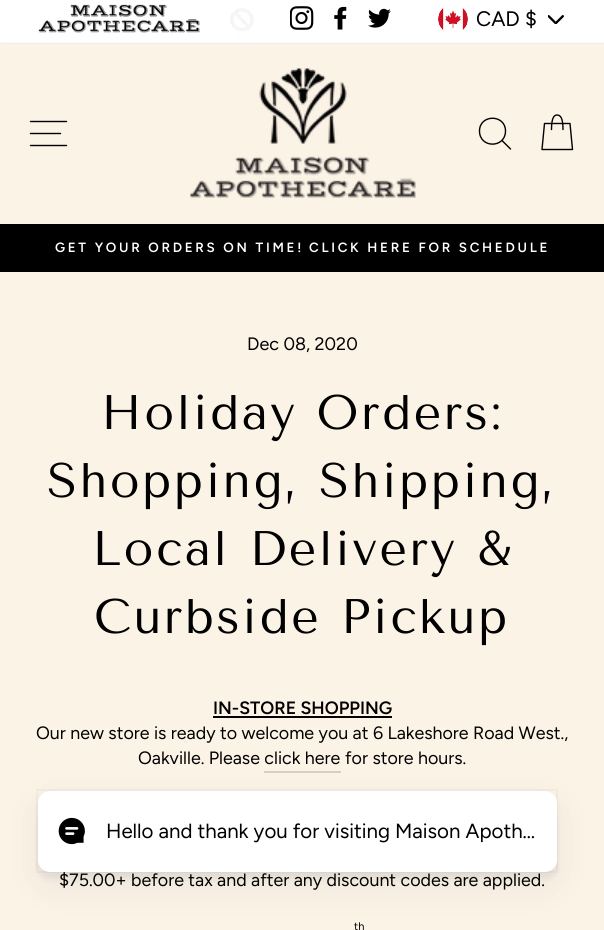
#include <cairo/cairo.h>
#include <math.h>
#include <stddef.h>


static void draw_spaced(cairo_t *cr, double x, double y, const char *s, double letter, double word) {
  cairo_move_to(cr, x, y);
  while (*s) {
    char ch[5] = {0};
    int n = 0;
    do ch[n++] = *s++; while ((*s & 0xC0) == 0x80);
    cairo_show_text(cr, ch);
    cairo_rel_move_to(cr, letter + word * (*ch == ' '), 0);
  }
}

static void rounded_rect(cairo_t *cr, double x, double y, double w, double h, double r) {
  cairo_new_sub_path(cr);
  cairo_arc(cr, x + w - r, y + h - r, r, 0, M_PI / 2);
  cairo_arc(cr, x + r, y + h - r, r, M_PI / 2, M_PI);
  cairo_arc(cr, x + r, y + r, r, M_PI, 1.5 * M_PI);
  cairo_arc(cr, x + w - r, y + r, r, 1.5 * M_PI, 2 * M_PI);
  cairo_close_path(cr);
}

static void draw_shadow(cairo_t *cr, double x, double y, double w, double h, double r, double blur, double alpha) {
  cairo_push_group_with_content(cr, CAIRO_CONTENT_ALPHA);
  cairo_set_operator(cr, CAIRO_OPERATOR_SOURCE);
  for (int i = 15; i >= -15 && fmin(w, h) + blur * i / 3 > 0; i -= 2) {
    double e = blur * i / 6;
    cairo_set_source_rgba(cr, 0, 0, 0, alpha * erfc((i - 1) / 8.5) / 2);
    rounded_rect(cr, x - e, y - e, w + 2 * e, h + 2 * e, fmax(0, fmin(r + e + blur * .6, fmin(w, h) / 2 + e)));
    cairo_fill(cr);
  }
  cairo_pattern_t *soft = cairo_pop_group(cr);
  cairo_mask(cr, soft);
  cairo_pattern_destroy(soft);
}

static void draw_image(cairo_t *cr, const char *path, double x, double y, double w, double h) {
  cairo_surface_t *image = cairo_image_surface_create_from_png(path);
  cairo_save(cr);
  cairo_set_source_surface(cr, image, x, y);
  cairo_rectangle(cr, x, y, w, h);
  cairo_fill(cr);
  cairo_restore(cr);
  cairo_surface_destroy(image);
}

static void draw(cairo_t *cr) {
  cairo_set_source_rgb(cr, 252 / 255.0, 243 / 255.0, 231 / 255.0);
  cairo_paint(cr);
  cairo_set_source_rgb(cr, 1, 1, 1);
  cairo_rectangle(cr, 0, 0, 604, 44);
  cairo_fill(cr);
  draw_image(cr, "images/1.png", 38, 4, 162, 29);
  draw_image(cr, "images/2.png", 230, 8, 24, 28);
  draw_image(cr, "images/3.png", 290, 6, 24, 24);
  draw_image(cr, "images/4.png", 334, 6, 13, 24);
  draw_image(cr, "images/5.png", 368, 8, 23, 20);
  draw_image(cr, "images/6.png", 548, 15, 16, 9);
  draw_image(cr, "images/7.png", 438, 8, 30, 22);
  cairo_set_source_rgb(cr, 0, 0, 0);
  draw_shadow(cr, 0, 44, 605, 180, 0, 1, 0.2);
  cairo_set_source_rgb(cr, 252 / 255.0, 243 / 255.0, 231 / 255.0);
  cairo_rectangle(cr, 0, 44, 604, 180);
  cairo_fill(cr);
  cairo_new_path(cr);
  cairo_move_to(cr, 30.5, 121.5);
  cairo_line_to(cr, 66.5, 121.5);
  cairo_move_to(cr, 30.5, 133.5);
  cairo_line_to(cr, 60.5, 133.5);
  cairo_move_to(cr, 30.5, 145.5);
  cairo_line_to(cr, 66.5, 145.5);
  cairo_set_source_rgb(cr, 0, 0, 0);
  cairo_set_line_width(cr, 1.4);
  cairo_set_line_cap(cr, CAIRO_LINE_CAP_ROUND);
  cairo_set_line_join(cr, CAIRO_LINE_JOIN_ROUND);
  cairo_stroke(cr);
  draw_image(cr, "images/8.png", 190, 68, 226, 130);
  cairo_new_path(cr);
  cairo_move_to(cr, 505.5, 131);
  cairo_curve_to(cr, 505.5, 148.5, 479.5, 148.5, 479.5, 131);
  cairo_curve_to(cr, 479.5, 114, 505.5, 114, 505.5, 131);
  cairo_close_path(cr);
  cairo_move_to(cr, 510.5, 149);
  cairo_line_to(cr, 502, 140.5);
  cairo_stroke(cr);
  cairo_new_path(cr);
  cairo_move_to(cr, 551.5, 129.5);
  cairo_curve_to(cr, 551.5, 118, 554, 115, 557, 115);
  cairo_curve_to(cr, 560.5, 115, 563, 118, 563, 129.5);
  cairo_move_to(cr, 544.5, 123.5);
  cairo_line_to(cr, 570, 123.5);
  cairo_line_to(cr, 572.5, 149.5);
  cairo_line_to(cr, 542, 149.5);
  cairo_close_path(cr);
  cairo_stroke(cr);
  cairo_rectangle(cr, 0, 224, 604, 48);
  cairo_fill(cr);
  cairo_rectangle(cr, 213, 716, 179, 2);
  cairo_fill(cr);
  cairo_set_source_rgb(cr, 214 / 255.0, 207 / 255.0, 196 / 255.0);
  cairo_rectangle(cr, 264, 771, 77, 2);
  cairo_fill(cr);
  cairo_set_source_rgb(cr, 55 / 255.0, 63 / 255.0, 71 / 255.0);
  draw_shadow(cr, 38, 803, 519, 82, 12, 19, 0.08);
  draw_shadow(cr, 38, 797, 519, 82, 12, 3, 0.08);
  cairo_select_font_face(cr, "Figtree", CAIRO_FONT_SLANT_NORMAL, CAIRO_FONT_WEIGHT_NORMAL);
  cairo_set_font_size(cr, 21);
  cairo_set_source_rgb(cr, 0, 0, 0);
  cairo_move_to(cr, 476, 26);
  cairo_show_text(cr, "CAD $");
  cairo_select_font_face(cr, "Figtree SemiBold", CAIRO_FONT_SLANT_NORMAL, CAIRO_FONT_WEIGHT_NORMAL);
  cairo_set_font_size(cr, 13.4);
  cairo_set_source_rgb(cr, 1, 1, 1);
  draw_spaced(cr, 55, 252, "GET YOUR ORDERS ON TIME!", 2.7, 0);
  draw_spaced(cr, 309, 252, "CLICK HERE FOR SCHEDULE", 2.7, 0);
  cairo_select_font_face(cr, "Figtree", CAIRO_FONT_SLANT_NORMAL, CAIRO_FONT_WEIGHT_NORMAL);
  cairo_set_font_size(cr, 18);
  cairo_set_source_rgb(cr, 0, 0, 0);
  cairo_move_to(cr, 247, 350);
  cairo_show_text(cr, "Dec 08, 2020");
  cairo_select_font_face(cr, "Tenor Sans", CAIRO_FONT_SLANT_NORMAL, CAIRO_FONT_WEIGHT_NORMAL);
  cairo_set_font_size(cr, 48.5);
  draw_spaced(cr, 101, 429, "Holiday Orders:", 2.4, 0);
  draw_spaced(cr, 47, 497, "Shopping, Shipping,", 2.4, 0);
  draw_spaced(cr, 92, 565, "Local Delivery &", 2.4, 0);
  draw_spaced(cr, 94, 633, "Curbside Pickup", 2.4, 0);
  cairo_select_font_face(cr, "Figtree SemiBold", CAIRO_FONT_SLANT_NORMAL, CAIRO_FONT_WEIGHT_NORMAL);
  cairo_set_font_size(cr, 17.85);
  cairo_move_to(cr, 213, 714);
  cairo_show_text(cr, "IN-STORE SHOPPING");
  cairo_select_font_face(cr, "Figtree", CAIRO_FONT_SLANT_NORMAL, CAIRO_FONT_WEIGHT_NORMAL);
  cairo_move_to(cr, 36, 739);
  cairo_show_text(cr, "Our new store is ready to welcome you at 6 Lakeshore Road West.,");
  cairo_move_to(cr, 138, 764);
  cairo_show_text(cr, "Oakville. Please click here");
  cairo_move_to(cr, 345, 764);
  cairo_show_text(cr, "for store hours.");
  cairo_move_to(cr, 59, 886);
  cairo_show_text(cr, "$75.00+ before tax and after any discount codes are applied.");
  cairo_set_font_size(cr, 11);
  cairo_move_to(cr, 354, 930);
  cairo_show_text(cr, "th");
  cairo_rectangle(cr, 37, 790, 520, 82);
  cairo_set_source_rgba(cr, 55 / 255.0, 63 / 255.0, 71 / 255.0, 0.04);
  cairo_set_line_width(cr, 2);
  cairo_set_line_cap(cr, CAIRO_LINE_CAP_BUTT);
  cairo_set_line_join(cr, CAIRO_LINE_JOIN_MITER);
  cairo_stroke(cr);
  cairo_set_source_rgb(cr, 1, 1, 1);
  rounded_rect(cr, 38, 791, 519, 81, 12);
  cairo_fill(cr);
  draw_image(cr, "images/9.png", 58, 817, 27, 28);
  cairo_set_font_size(cr, 20.5);
  cairo_set_source_rgb(cr, 0, 0, 0);
  cairo_move_to(cr, 106, 838);
  cairo_show_text(cr, "Hello and thank you for visiting Maison Apoth…");
}

int main(void) {
  cairo_surface_t *surface = cairo_image_surface_create(CAIRO_FORMAT_RGB24, 604, 930);
  cairo_t *cr = cairo_create(surface);
  cairo_font_options_t *options = cairo_font_options_create();
  cairo_font_options_set_hint_metrics(options, CAIRO_HINT_METRICS_OFF);
  cairo_font_options_set_hint_style(options, CAIRO_HINT_STYLE_NONE);
  cairo_set_font_options(cr, options);
  cairo_set_miter_limit(cr, 4);
  draw(cr);
  cairo_surface_write_to_png(surface, "out.png");
  cairo_font_options_destroy(options);
  cairo_destroy(cr);
  cairo_surface_destroy(surface);
  return 0;
}
